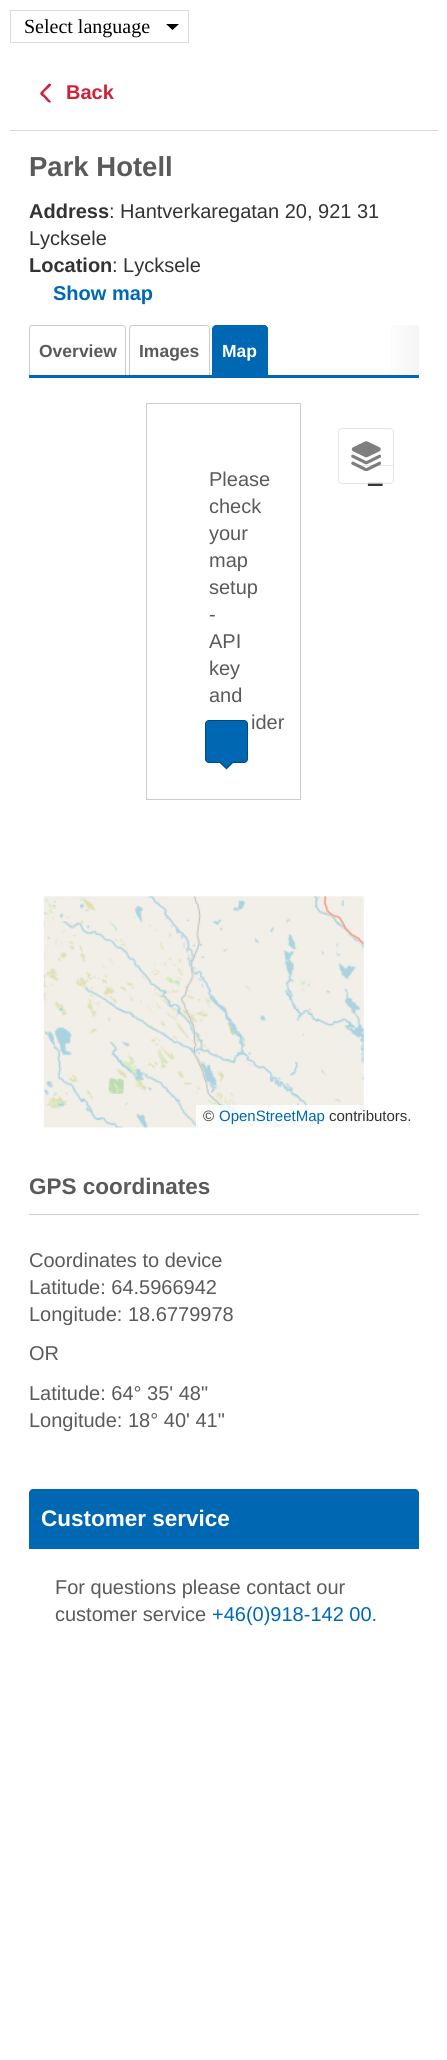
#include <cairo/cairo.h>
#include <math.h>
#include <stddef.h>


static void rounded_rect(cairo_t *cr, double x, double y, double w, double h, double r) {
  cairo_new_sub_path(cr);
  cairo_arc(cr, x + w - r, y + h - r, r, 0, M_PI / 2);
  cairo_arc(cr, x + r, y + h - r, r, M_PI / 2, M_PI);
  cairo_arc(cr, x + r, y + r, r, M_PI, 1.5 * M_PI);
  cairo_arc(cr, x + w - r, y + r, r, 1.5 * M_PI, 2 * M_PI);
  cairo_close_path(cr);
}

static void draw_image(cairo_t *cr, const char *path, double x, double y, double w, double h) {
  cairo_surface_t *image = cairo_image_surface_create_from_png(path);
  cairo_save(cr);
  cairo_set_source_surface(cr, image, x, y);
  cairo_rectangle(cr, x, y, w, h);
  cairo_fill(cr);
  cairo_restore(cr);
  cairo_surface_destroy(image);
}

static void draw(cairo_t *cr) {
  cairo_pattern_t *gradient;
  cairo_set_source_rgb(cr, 1, 1, 1);
  cairo_paint(cr);
  cairo_rectangle(cr, 10.5, 10.5, 178, 32);
  cairo_set_source_rgb(cr, 221 / 255.0, 221 / 255.0, 221 / 255.0);
  cairo_set_line_width(cr, 1);
  cairo_stroke(cr);
  cairo_set_source_rgb(cr, 0, 0, 0);
  cairo_new_path(cr);
  cairo_move_to(cr, 166, 24);
  cairo_line_to(cr, 179, 24);
  cairo_line_to(cr, 172.5, 30);
  cairo_close_path(cr);
  cairo_fill(cr);
  cairo_set_source_rgb(cr, 217 / 255.0, 217 / 255.0, 217 / 255.0);
  cairo_new_path(cr);
  cairo_move_to(cr, 10, 130);
  cairo_line_to(cr, 10, 131);
  cairo_line_to(cr, 438, 131);
  cairo_line_to(cr, 438, 56);
  cairo_line_to(cr, 438, 130);
  cairo_close_path(cr);
  cairo_fill(cr);
  cairo_set_source_rgb(cr, 208 / 255.0, 33 / 255.0, 57 / 255.0);
  cairo_new_path(cr);
  cairo_move_to(cr, 41, 92);
  cairo_line_to(cr, 49, 83.5);
  cairo_curve_to(cr, 49.5, 83.5, 50.5, 83.5, 51, 84.5);
  cairo_curve_to(cr, 51.5, 86, 46, 90, 45, 91);
  cairo_curve_to(cr, 44.5, 91.5, 42.5, 95, 41, 94);
  cairo_line_to(cr, 40.5, 92.5);
  cairo_close_path(cr);
  cairo_fill(cr);
  cairo_new_path(cr);
  cairo_move_to(cr, 42.5, 92.5);
  cairo_line_to(cr, 50.5, 101);
  cairo_curve_to(cr, 51, 101.5, 51, 102.5, 50, 102.5);
  cairo_curve_to(cr, 48.5, 103.5, 44.5, 98, 43.5, 97);
  cairo_curve_to(cr, 42.5, 96.5, 39.5, 94.5, 40.5, 93);
  cairo_line_to(cr, 41.5, 92.5);
  cairo_close_path(cr);
  cairo_fill(cr);
  cairo_set_source_rgb(cr, 0, 104 / 255.0, 179 / 255.0);
  cairo_rectangle(cr, 126, 375, 293, 3);
  cairo_fill(cr);
  cairo_set_source_rgb(cr, 204 / 255.0, 204 / 255.0, 204 / 255.0);
  cairo_set_fill_rule(cr, CAIRO_FILL_RULE_EVEN_ODD);
  cairo_new_path(cr);
  cairo_move_to(cr, 32, 325);
  cairo_line_to(cr, 122, 325);
  cairo_curve_to(cr, 125, 325, 126, 327, 126, 329);
  cairo_line_to(cr, 126, 378);
  cairo_line_to(cr, 29, 378);
  cairo_line_to(cr, 29, 329);
  cairo_curve_to(cr, 29, 327, 30, 325, 32, 325);
  cairo_close_path(cr);
  cairo_move_to(cr, 32, 326);
  cairo_line_to(cr, 122, 326);
  cairo_curve_to(cr, 124, 326, 125, 327, 125, 329);
  cairo_line_to(cr, 125, 378);
  cairo_line_to(cr, 30, 378);
  cairo_line_to(cr, 30, 329);
  cairo_curve_to(cr, 30, 327, 31, 326, 32, 326);
  cairo_close_path(cr);
  cairo_fill(cr);
  cairo_set_source_rgb(cr, 0, 104 / 255.0, 179 / 255.0);
  cairo_rectangle(cr, 29, 375, 97, 3);
  cairo_fill(cr);
  cairo_set_source_rgb(cr, 1, 1, 1);
  cairo_new_path(cr);
  cairo_move_to(cr, 133, 325);
  cairo_line_to(cr, 206, 325);
  cairo_curve_to(cr, 208, 325, 210, 327, 210, 329);
  cairo_line_to(cr, 210, 378);
  cairo_line_to(cr, 129, 378);
  cairo_line_to(cr, 129, 329);
  cairo_curve_to(cr, 129, 327, 131, 325, 133, 325);
  cairo_close_path(cr);
  cairo_fill(cr);
  cairo_set_source_rgb(cr, 204 / 255.0, 204 / 255.0, 204 / 255.0);
  cairo_new_path(cr);
  cairo_move_to(cr, 132, 325);
  cairo_line_to(cr, 206, 325);
  cairo_curve_to(cr, 208, 325, 210, 327, 210, 329);
  cairo_line_to(cr, 210, 378);
  cairo_line_to(cr, 129, 378);
  cairo_line_to(cr, 129, 329);
  cairo_curve_to(cr, 129, 327, 130, 325, 132, 325);
  cairo_close_path(cr);
  cairo_move_to(cr, 132, 326);
  cairo_line_to(cr, 206, 326);
  cairo_curve_to(cr, 208, 326, 209, 327, 209, 329);
  cairo_line_to(cr, 209, 378);
  cairo_line_to(cr, 130, 378);
  cairo_line_to(cr, 130, 329);
  cairo_curve_to(cr, 130, 327, 131, 326, 132, 326);
  cairo_close_path(cr);
  cairo_fill(cr);
  cairo_set_source_rgb(cr, 0, 104 / 255.0, 179 / 255.0);
  cairo_rectangle(cr, 129, 375, 81, 3);
  cairo_fill(cr);
  cairo_new_path(cr);
  cairo_move_to(cr, 217, 325);
  cairo_line_to(cr, 264, 325);
  cairo_curve_to(cr, 266, 325, 268, 327, 268, 329);
  cairo_line_to(cr, 268, 378);
  cairo_line_to(cr, 213, 378);
  cairo_line_to(cr, 213, 329);
  cairo_curve_to(cr, 213, 327, 215, 325, 217, 325);
  cairo_close_path(cr);
  cairo_fill(cr);
  cairo_new_path(cr);
  cairo_move_to(cr, 216, 325);
  cairo_line_to(cr, 264, 325);
  cairo_curve_to(cr, 266, 325, 268, 327, 268, 329);
  cairo_line_to(cr, 268, 378);
  cairo_line_to(cr, 212, 378);
  cairo_line_to(cr, 212, 329);
  cairo_curve_to(cr, 212, 327, 214, 325, 216, 325);
  cairo_close_path(cr);
  cairo_move_to(cr, 216, 326);
  cairo_line_to(cr, 264, 326);
  cairo_curve_to(cr, 265, 326, 266, 327, 266, 329);
  cairo_line_to(cr, 266, 378);
  cairo_line_to(cr, 214, 378);
  cairo_line_to(cr, 214, 329);
  cairo_curve_to(cr, 214, 327, 215, 326, 216, 326);
  cairo_close_path(cr);
  cairo_fill(cr);
  gradient = cairo_pattern_create_linear(381, 350, 419, 350);
  cairo_pattern_add_color_stop_rgba(gradient, 0, 1, 1, 1, 1);
  cairo_pattern_add_color_stop_rgba(gradient, 1, 245 / 255.0, 245 / 255.0, 245 / 255.0, 1);
  cairo_set_source(cr, gradient);
  cairo_pattern_destroy(gradient);
  cairo_rectangle(cr, 391, 325, 28, 50);
  cairo_fill(cr);
  cairo_rectangle(cr, 146.5, 403.5, 154, 396);
  cairo_set_source_rgb(cr, 204 / 255.0, 204 / 255.0, 204 / 255.0);
  cairo_stroke(cr);
  cairo_set_fill_rule(cr, CAIRO_FILL_RULE_WINDING);
  cairo_new_path(cr);
  cairo_move_to(cr, 357.5, 466);
  cairo_line_to(cr, 392.5, 466);
  cairo_line_to(cr, 394, 465);
  cairo_line_to(cr, 356, 465);
  cairo_close_path(cr);
  cairo_fill(cr);
  cairo_set_source_rgb(cr, 1, 1, 1);
  cairo_new_path(cr);
  cairo_move_to(cr, 394, 465);
  cairo_line_to(cr, 394, 500);
  cairo_line_to(cr, 393, 501.5);
  cairo_line_to(cr, 391.5, 500.5);
  cairo_line_to(cr, 392.5, 499);
  cairo_line_to(cr, 392.5, 466);
  cairo_close_path(cr);
  cairo_move_to(cr, 357, 501.5);
  cairo_line_to(cr, 356, 500);
  cairo_line_to(cr, 356, 465);
  cairo_line_to(cr, 357.5, 466);
  cairo_line_to(cr, 357.5, 499);
  cairo_line_to(cr, 358.5, 500.5);
  cairo_close_path(cr);
  cairo_fill(cr);
  cairo_set_source_rgb(cr, 0, 74 / 255.0, 128 / 255.0);
  cairo_new_path(cr);
  cairo_move_to(cr, 237, 759);
  cairo_line_to(cr, 226.5, 769.5);
  cairo_line_to(cr, 215.5, 759);
  cairo_close_path(cr);
  cairo_fill(cr);
  cairo_set_source_rgb(cr, 0, 104 / 255.0, 179 / 255.0);
  rounded_rect(cr, 205.5, 720.5, 42, 42, 3.5);
  cairo_fill_preserve(cr);
  cairo_set_source_rgb(cr, 0, 74 / 255.0, 128 / 255.0);
  cairo_stroke(cr);
  cairo_set_source_rgb(cr, 0, 104 / 255.0, 179 / 255.0);
  cairo_new_path(cr);
  cairo_move_to(cr, 226.5, 768);
  cairo_line_to(cr, 217.5, 759);
  cairo_line_to(cr, 235, 759);
  cairo_close_path(cr);
  cairo_fill(cr);
  draw_image(cr, "images/2.png", 43, 896, 321, 232);
  cairo_set_source_rgba(cr, 1, 1, 1, 0.8);
  cairo_rectangle(cr, 196, 1105, 168, 23);
  cairo_fill(cr);
  cairo_set_source_rgb(cr, 204 / 255.0, 204 / 255.0, 204 / 255.0);
  cairo_rectangle(cr, 29, 1214, 390, 1);
  cairo_fill(cr);
  cairo_set_source_rgb(cr, 0, 104 / 255.0, 179 / 255.0);
  cairo_new_path(cr);
  cairo_move_to(cr, 33, 1489);
  cairo_line_to(cr, 415, 1489);
  cairo_curve_to(cr, 417, 1489, 419, 1491, 419, 1493);
  cairo_line_to(cr, 419, 1549);
  cairo_line_to(cr, 29, 1549);
  cairo_line_to(cr, 29, 1493);
  cairo_curve_to(cr, 29, 1491, 31, 1489, 33, 1489);
  cairo_close_path(cr);
  cairo_fill(cr);
  cairo_select_font_face(cr, "Liberation Serif", CAIRO_FONT_SLANT_NORMAL, CAIRO_FONT_WEIGHT_NORMAL);
  cairo_set_font_size(cr, 20);
  cairo_set_source_rgb(cr, 0, 0, 0);
  cairo_move_to(cr, 24, 33);
  cairo_show_text(cr, "Select language");
  cairo_select_font_face(cr, "Liberation Sans", CAIRO_FONT_SLANT_NORMAL, CAIRO_FONT_WEIGHT_BOLD);
  cairo_set_source_rgb(cr, 208 / 255.0, 33 / 255.0, 57 / 255.0);
  cairo_move_to(cr, 66, 99);
  cairo_show_text(cr, "Back");
  cairo_set_font_size(cr, 27.5);
  cairo_set_source_rgb(cr, 90 / 255.0, 90 / 255.0, 90 / 255.0);
  cairo_move_to(cr, 29, 176);
  cairo_show_text(cr, "Park Hotell");
  cairo_set_font_size(cr, 20);
  cairo_set_source_rgb(cr, 51 / 255.0, 51 / 255.0, 51 / 255.0);
  cairo_move_to(cr, 29, 218);
  cairo_show_text(cr, "Address");
  cairo_select_font_face(cr, "Liberation Sans", CAIRO_FONT_SLANT_NORMAL, CAIRO_FONT_WEIGHT_NORMAL);
  cairo_move_to(cr, 109, 218);
  cairo_show_text(cr, ": Hantverkaregatan 20, 921 31");
  cairo_move_to(cr, 29, 245);
  cairo_show_text(cr, "Lycksele");
  cairo_select_font_face(cr, "Liberation Sans", CAIRO_FONT_SLANT_NORMAL, CAIRO_FONT_WEIGHT_BOLD);
  cairo_move_to(cr, 29, 272);
  cairo_show_text(cr, "Location");
  cairo_select_font_face(cr, "Liberation Sans", CAIRO_FONT_SLANT_NORMAL, CAIRO_FONT_WEIGHT_NORMAL);
  cairo_move_to(cr, 112, 272);
  cairo_show_text(cr, ": Lycksele");
  cairo_select_font_face(cr, "Liberation Sans", CAIRO_FONT_SLANT_NORMAL, CAIRO_FONT_WEIGHT_BOLD);
  cairo_set_source_rgb(cr, 0, 104 / 255.0, 179 / 255.0);
  cairo_move_to(cr, 53, 300);
  cairo_show_text(cr, "Show map");
  cairo_set_font_size(cr, 17.5);
  cairo_set_source_rgb(cr, 90 / 255.0, 90 / 255.0, 90 / 255.0);
  cairo_move_to(cr, 39, 357);
  cairo_show_text(cr, "Overview");
  cairo_move_to(cr, 139, 357);
  cairo_show_text(cr, "Images");
  cairo_set_source_rgb(cr, 1, 1, 1);
  cairo_move_to(cr, 222, 357);
  cairo_show_text(cr, "Map");
  cairo_select_font_face(cr, "Liberation Sans", CAIRO_FONT_SLANT_NORMAL, CAIRO_FONT_WEIGHT_NORMAL);
  cairo_set_font_size(cr, 20);
  cairo_set_source_rgb(cr, 90 / 255.0, 90 / 255.0, 90 / 255.0);
  cairo_move_to(cr, 209, 486);
  cairo_show_text(cr, "Please");
  cairo_move_to(cr, 209, 513);
  cairo_show_text(cr, "check");
  cairo_move_to(cr, 209, 540);
  cairo_show_text(cr, "your");
  cairo_move_to(cr, 209, 567);
  cairo_show_text(cr, "map");
  cairo_move_to(cr, 209, 594);
  cairo_show_text(cr, "setup");
  cairo_move_to(cr, 209, 621);
  cairo_show_text(cr, "-");
  cairo_move_to(cr, 209, 648);
  cairo_show_text(cr, "API");
  cairo_move_to(cr, 209, 675);
  cairo_show_text(cr, "key");
  cairo_move_to(cr, 209, 702);
  cairo_show_text(cr, "and");
  cairo_move_to(cr, 251, 729);
  cairo_show_text(cr, "ider");
  cairo_select_font_face(cr, "DejaVu Sans Mono", CAIRO_FONT_SLANT_NORMAL, CAIRO_FONT_WEIGHT_BOLD);
  cairo_set_font_size(cr, 27.5);
  cairo_set_source_rgb(cr, 51 / 255.0, 51 / 255.0, 51 / 255.0);
  cairo_move_to(cr, 367, 493);
  cairo_show_text(cr, "−");
  cairo_set_source_rgba(cr, 1, 1, 1, 0.5);
  rounded_rect(cr, 338, 428, 56, 56, 4);
  cairo_fill(cr);
  draw_image(cr, "images/1.png", 351, 441, 30, 30);
  rounded_rect(cr, 338.5, 428.5, 55, 55, 3.5);
  cairo_set_source_rgba(cr, 204 / 255.0, 204 / 255.0, 204 / 255.0, 0.5);
  cairo_stroke(cr);
  cairo_select_font_face(cr, "Liberation Sans", CAIRO_FONT_SLANT_NORMAL, CAIRO_FONT_WEIGHT_NORMAL);
  cairo_set_font_size(cr, 15);
  cairo_set_source_rgb(cr, 51 / 255.0, 51 / 255.0, 51 / 255.0);
  cairo_move_to(cr, 203, 1121);
  cairo_show_text(cr, "©");
  cairo_set_source_rgb(cr, 0, 104 / 255.0, 179 / 255.0);
  cairo_move_to(cr, 219, 1121);
  cairo_show_text(cr, "OpenStreetMap");
  cairo_set_source_rgb(cr, 51 / 255.0, 51 / 255.0, 51 / 255.0);
  cairo_move_to(cr, 329, 1121);
  cairo_show_text(cr, "contributors.");
  cairo_select_font_face(cr, "Liberation Sans", CAIRO_FONT_SLANT_NORMAL, CAIRO_FONT_WEIGHT_BOLD);
  cairo_set_font_size(cr, 22.5);
  cairo_set_source_rgb(cr, 90 / 255.0, 90 / 255.0, 90 / 255.0);
  cairo_move_to(cr, 29, 1194);
  cairo_show_text(cr, "GPS coordinates");
  cairo_select_font_face(cr, "Liberation Sans", CAIRO_FONT_SLANT_NORMAL, CAIRO_FONT_WEIGHT_NORMAL);
  cairo_set_font_size(cr, 20);
  cairo_move_to(cr, 29, 1267);
  cairo_show_text(cr, "Coordinates to device");
  cairo_move_to(cr, 29, 1294);
  cairo_show_text(cr, "Latitude: 64.5966942");
  cairo_move_to(cr, 29, 1321);
  cairo_show_text(cr, "Longitude: 18.6779978");
  cairo_move_to(cr, 29, 1360);
  cairo_show_text(cr, "OR");
  cairo_move_to(cr, 29, 1400);
  cairo_show_text(cr, "Latitude: 64° 35' 48\"");
  cairo_move_to(cr, 29, 1427);
  cairo_show_text(cr, "Longitude: 18° 40' 41\"");
  cairo_select_font_face(cr, "Liberation Sans", CAIRO_FONT_SLANT_NORMAL, CAIRO_FONT_WEIGHT_BOLD);
  cairo_set_font_size(cr, 22.5);
  cairo_set_source_rgb(cr, 1, 1, 1);
  cairo_move_to(cr, 41, 1526);
  cairo_show_text(cr, "Customer service");
  cairo_select_font_face(cr, "Liberation Sans", CAIRO_FONT_SLANT_NORMAL, CAIRO_FONT_WEIGHT_NORMAL);
  cairo_set_font_size(cr, 20);
  cairo_set_source_rgb(cr, 90 / 255.0, 90 / 255.0, 90 / 255.0);
  cairo_move_to(cr, 55, 1594);
  cairo_show_text(cr, "For questions please contact our");
  cairo_move_to(cr, 55, 1621);
  cairo_show_text(cr, "customer service");
  cairo_set_source_rgb(cr, 0, 104 / 255.0, 179 / 255.0);
  cairo_move_to(cr, 212, 1621);
  cairo_show_text(cr, "+46(0)918-142 00.");
}

int main(void) {
  cairo_surface_t *surface = cairo_image_surface_create(CAIRO_FORMAT_RGB24, 447, 2060);
  cairo_t *cr = cairo_create(surface);
  cairo_font_options_t *options = cairo_font_options_create();
  cairo_font_options_set_hint_metrics(options, CAIRO_HINT_METRICS_OFF);
  cairo_font_options_set_hint_style(options, CAIRO_HINT_STYLE_NONE);
  cairo_set_font_options(cr, options);
  cairo_set_miter_limit(cr, 4);
  draw(cr);
  cairo_surface_write_to_png(surface, "out.png");
  cairo_font_options_destroy(options);
  cairo_destroy(cr);
  cairo_surface_destroy(surface);
  return 0;
}
